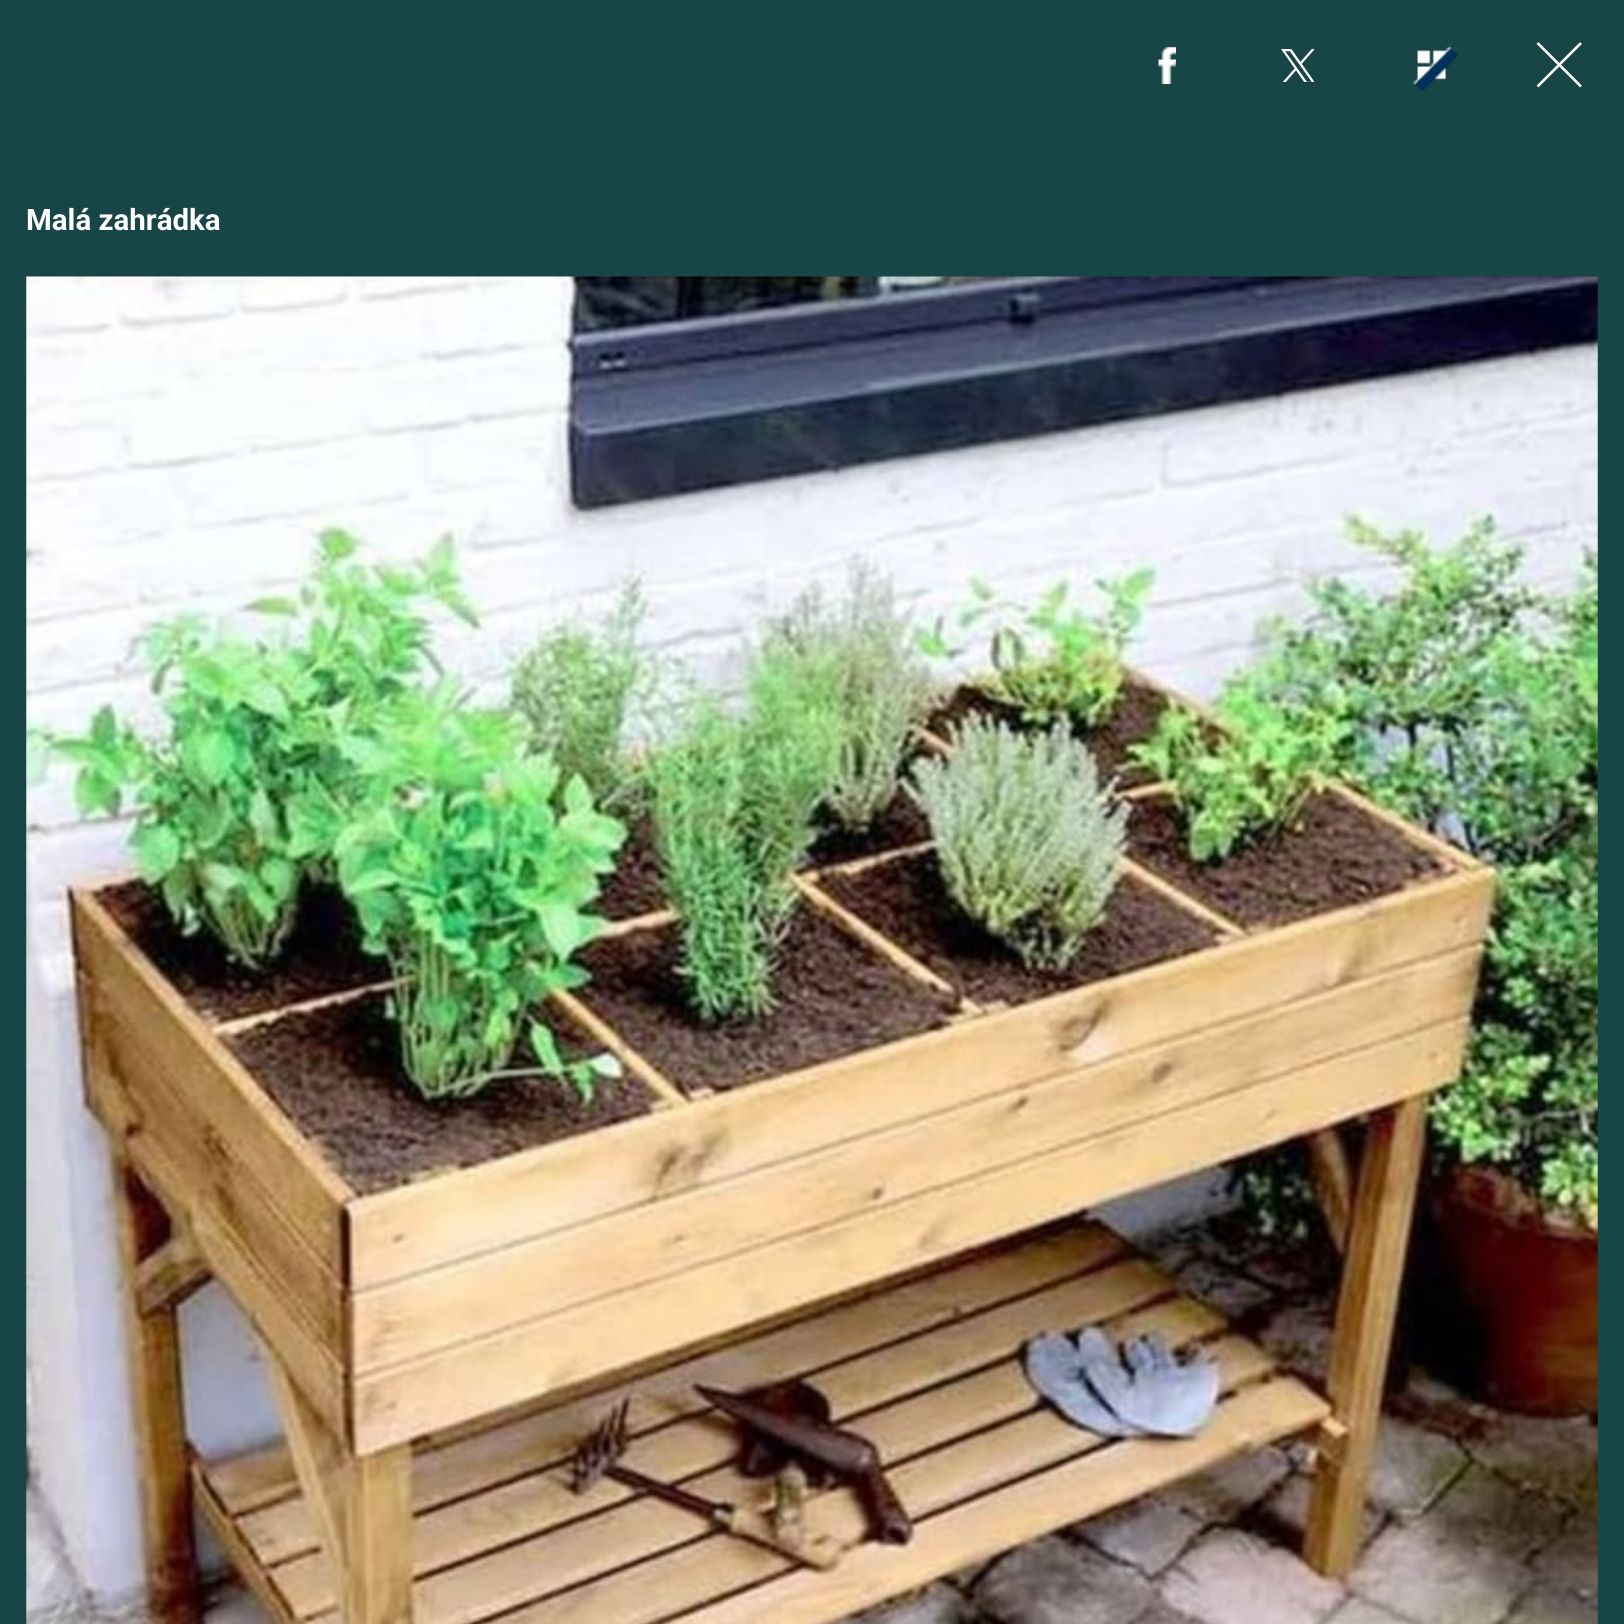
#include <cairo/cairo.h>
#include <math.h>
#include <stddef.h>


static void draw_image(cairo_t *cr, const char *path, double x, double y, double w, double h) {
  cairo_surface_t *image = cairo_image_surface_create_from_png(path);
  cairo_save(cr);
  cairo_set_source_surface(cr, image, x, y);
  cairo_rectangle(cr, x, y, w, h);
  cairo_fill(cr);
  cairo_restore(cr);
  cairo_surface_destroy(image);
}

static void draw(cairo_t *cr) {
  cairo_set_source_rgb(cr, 24 / 255.0, 69 / 255.0, 70 / 255.0);
  cairo_paint(cr);
  draw_image(cr, "images/1.png", 1158, 47, 18, 37);
  draw_image(cr, "images/2.png", 1281, 49, 33, 33);
  draw_image(cr, "images/3.png", 1412, 45, 46, 47);
  cairo_new_path(cr);
  cairo_move_to(cr, 1537.5, 43);
  cairo_line_to(cr, 1581, 86.5);
  cairo_move_to(cr, 1581, 43);
  cairo_line_to(cr, 1537.5, 86.5);
  cairo_set_source_rgb(cr, 1, 1, 1);
  cairo_set_line_width(cr, 2.6);
  cairo_stroke(cr);
  draw_image(cr, "images/4.png", 26, 276, 1572, 1348);
  cairo_select_font_face(cr, "Roboto", CAIRO_FONT_SLANT_NORMAL, CAIRO_FONT_WEIGHT_BOLD);
  cairo_set_font_size(cr, 29.5);
  cairo_move_to(cr, 26, 230);
  cairo_show_text(cr, "Malá zahrádka");
}

int main(void) {
  cairo_surface_t *surface = cairo_image_surface_create(CAIRO_FORMAT_RGB24, 1624, 1624);
  cairo_t *cr = cairo_create(surface);
  cairo_font_options_t *options = cairo_font_options_create();
  cairo_font_options_set_hint_metrics(options, CAIRO_HINT_METRICS_OFF);
  cairo_font_options_set_hint_style(options, CAIRO_HINT_STYLE_NONE);
  cairo_set_font_options(cr, options);
  cairo_set_miter_limit(cr, 4);
  draw(cr);
  cairo_surface_write_to_png(surface, "out.png");
  cairo_font_options_destroy(options);
  cairo_destroy(cr);
  cairo_surface_destroy(surface);
  return 0;
}
